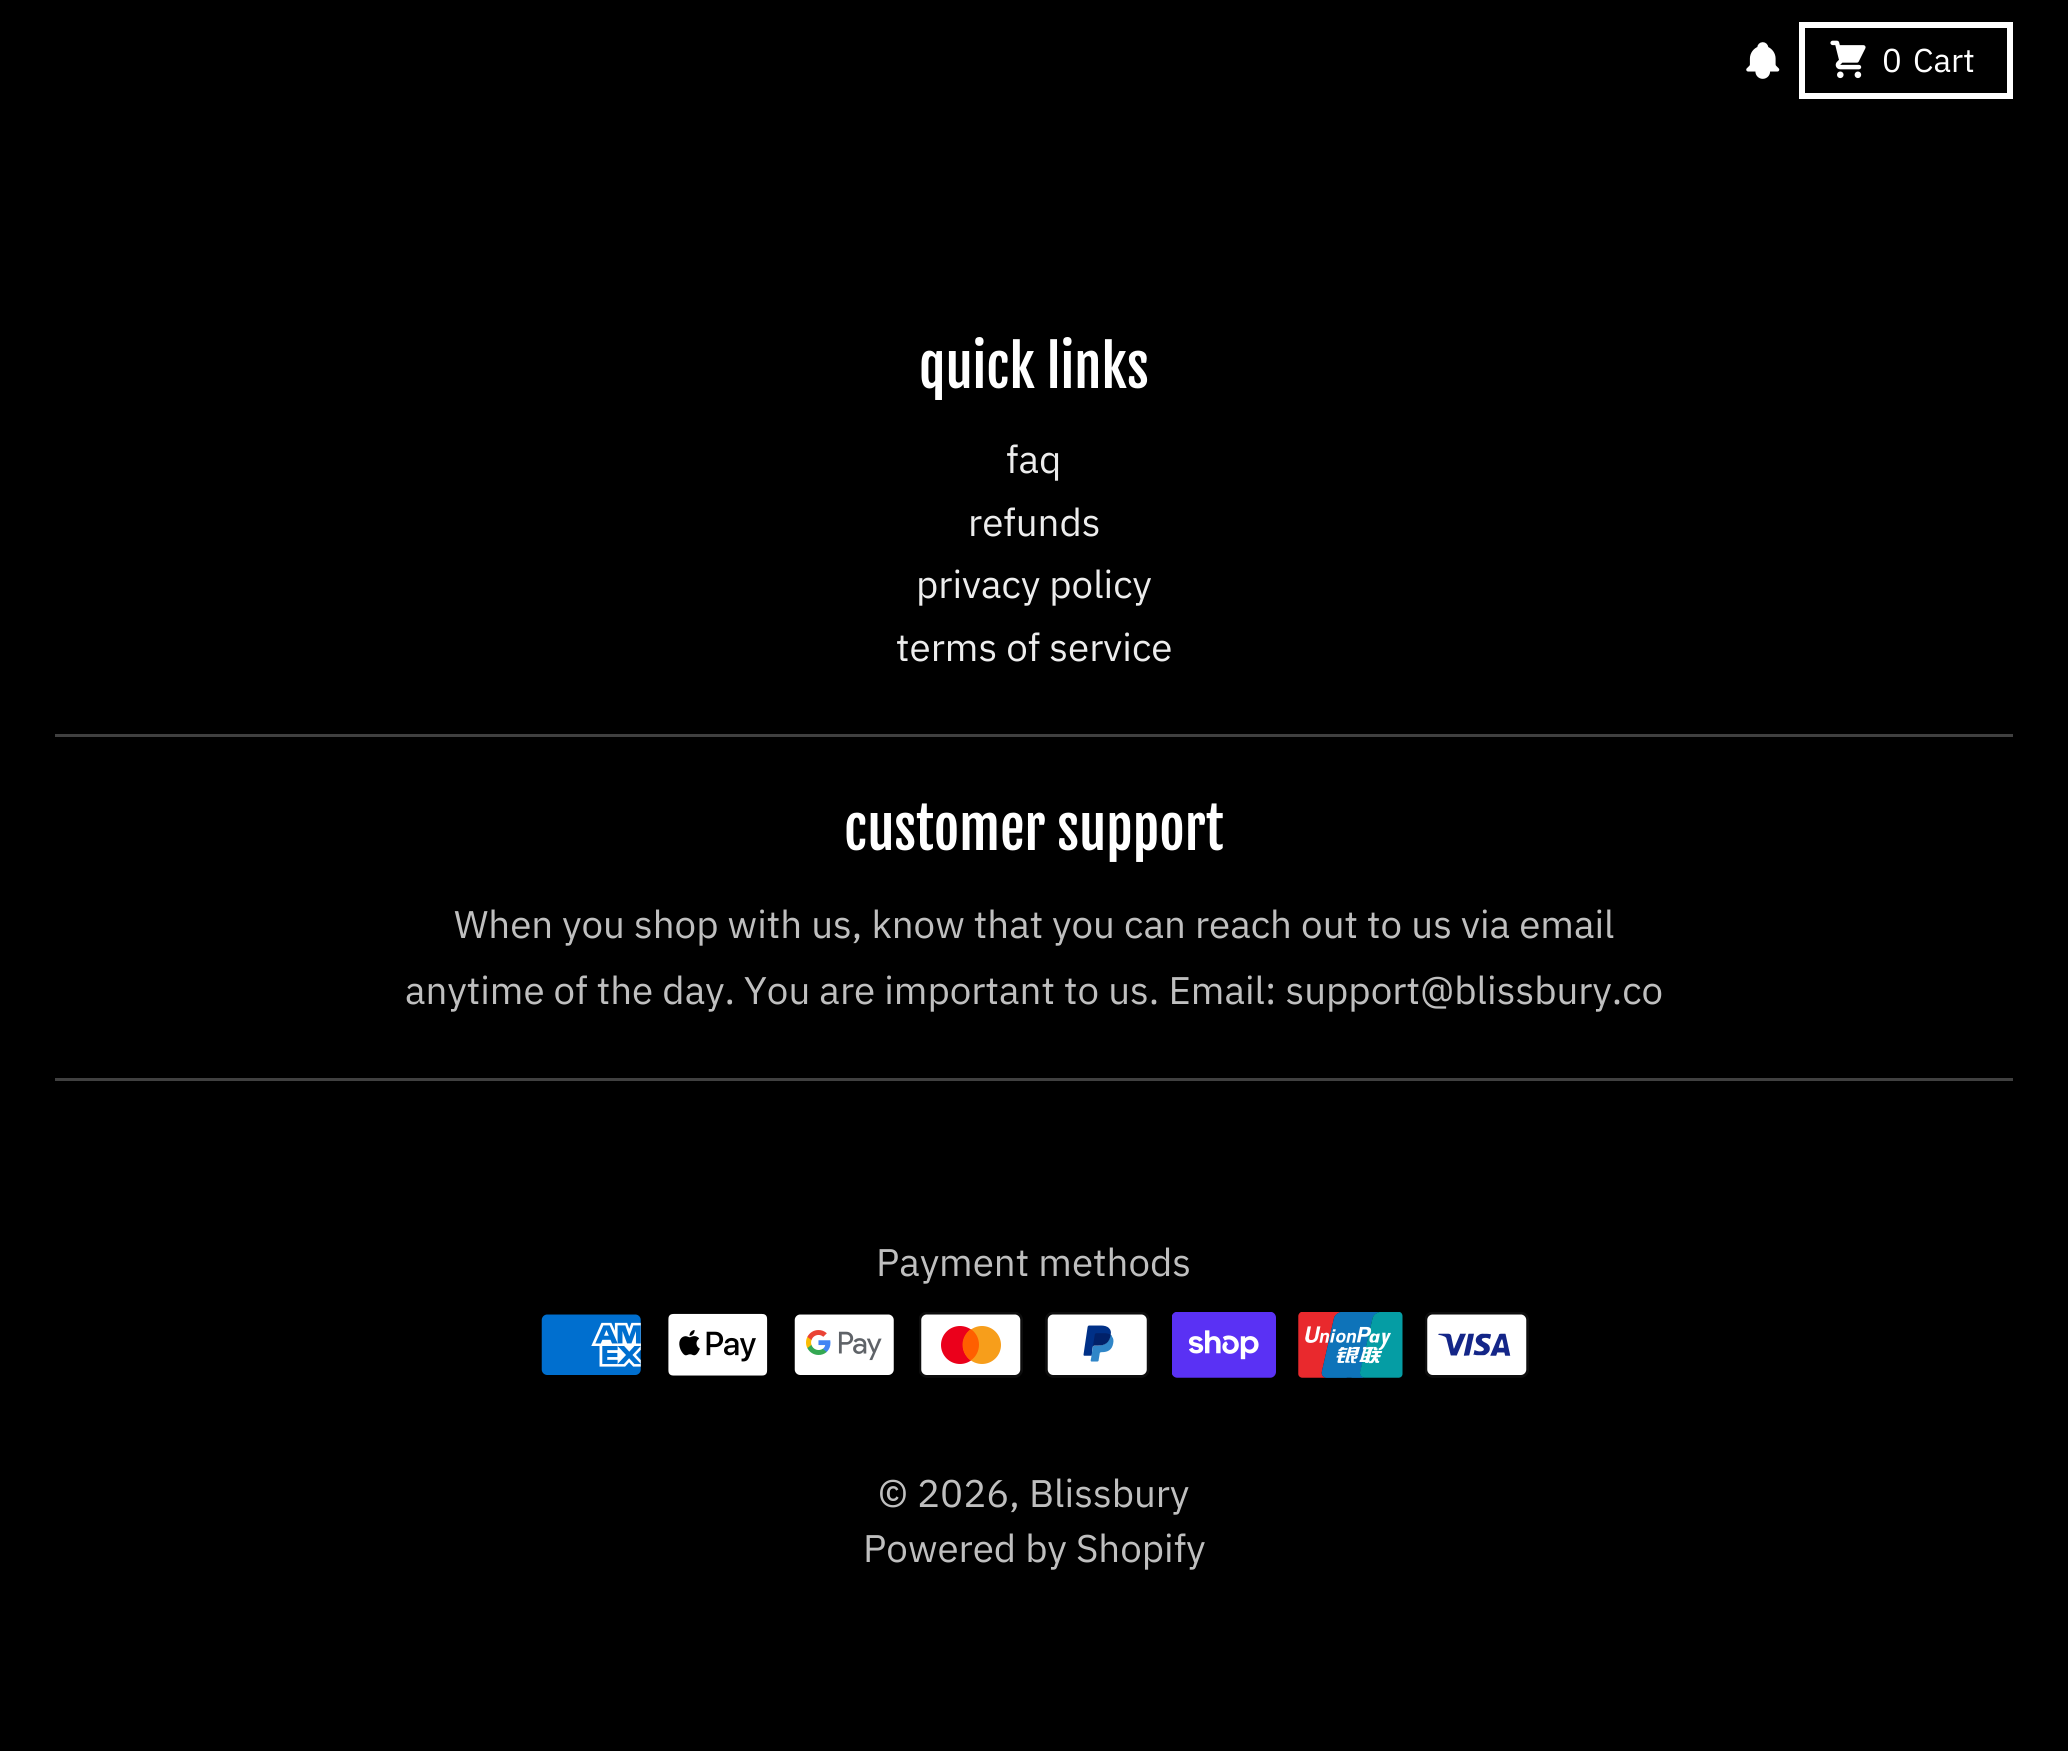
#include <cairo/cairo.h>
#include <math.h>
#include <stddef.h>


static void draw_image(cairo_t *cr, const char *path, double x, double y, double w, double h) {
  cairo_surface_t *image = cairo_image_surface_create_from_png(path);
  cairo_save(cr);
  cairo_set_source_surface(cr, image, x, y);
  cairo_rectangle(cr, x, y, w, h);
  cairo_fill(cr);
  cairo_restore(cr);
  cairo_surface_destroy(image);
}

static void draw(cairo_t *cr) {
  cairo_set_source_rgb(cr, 0, 0, 0);
  cairo_paint(cr);
  draw_image(cr, "images/1.png", 1746, 42, 34, 37);
  cairo_rectangle(cr, 1802, 25, 208, 71);
  cairo_set_source_rgb(cr, 1, 1, 1);
  cairo_set_line_width(cr, 6);
  cairo_stroke(cr);
  draw_image(cr, "images/2.png", 1830, 40, 36, 39);
  cairo_set_source_rgb(cr, 64 / 255.0, 64 / 255.0, 64 / 255.0);
  cairo_rectangle(cr, 55, 734, 1958, 3);
  cairo_fill(cr);
  cairo_rectangle(cr, 55, 1078, 1958, 3);
  cairo_fill(cr);
  draw_image(cr, "images/3.png", 541, 1314, 100, 61);
  draw_image(cr, "images/4.png", 668, 1313, 100, 63);
  draw_image(cr, "images/5.png", 794, 1314, 100, 61);
  draw_image(cr, "images/6.png", 919, 1312, 104, 66);
  draw_image(cr, "images/7.png", 1045, 1312, 105, 66);
  draw_image(cr, "images/8.png", 1172, 1312, 104, 66);
  draw_image(cr, "images/9.png", 1298, 1312, 105, 66);
  draw_image(cr, "images/10.png", 1425, 1312, 104, 66);
  cairo_select_font_face(cr, "IBM Plex Sans", CAIRO_FONT_SLANT_NORMAL, CAIRO_FONT_WEIGHT_NORMAL);
  cairo_set_font_size(cr, 33);
  cairo_set_source_rgb(cr, 1, 1, 1);
  cairo_move_to(cr, 1882, 72);
  cairo_show_text(cr, "0");
  cairo_move_to(cr, 1913, 72);
  cairo_show_text(cr, "Cart");
  cairo_select_font_face(cr, "Fjalla One", CAIRO_FONT_SLANT_NORMAL, CAIRO_FONT_WEIGHT_NORMAL);
  cairo_set_font_size(cr, 55);
  cairo_move_to(cr, 919, 388);
  cairo_show_text(cr, "quick links");
  cairo_select_font_face(cr, "IBM Plex Sans", CAIRO_FONT_SLANT_NORMAL, CAIRO_FONT_WEIGHT_NORMAL);
  cairo_set_font_size(cr, 38.5);
  cairo_set_source_rgb(cr, 237 / 255.0, 237 / 255.0, 237 / 255.0);
  cairo_move_to(cr, 1006, 473);
  cairo_show_text(cr, "faq");
  cairo_move_to(cr, 968, 536);
  cairo_show_text(cr, "refunds");
  cairo_move_to(cr, 916, 598);
  cairo_show_text(cr, "privacy policy");
  cairo_move_to(cr, 896, 661);
  cairo_show_text(cr, "terms of service");
  cairo_select_font_face(cr, "Fjalla One", CAIRO_FONT_SLANT_NORMAL, CAIRO_FONT_WEIGHT_NORMAL);
  cairo_set_font_size(cr, 55);
  cairo_set_source_rgb(cr, 1, 1, 1);
  cairo_move_to(cr, 844, 850);
  cairo_show_text(cr, "customer support");
  cairo_select_font_face(cr, "IBM Plex Sans", CAIRO_FONT_SLANT_NORMAL, CAIRO_FONT_WEIGHT_NORMAL);
  cairo_set_font_size(cr, 38.5);
  cairo_set_source_rgb(cr, 191 / 255.0, 191 / 255.0, 191 / 255.0);
  cairo_move_to(cr, 454, 938);
  cairo_show_text(cr, "When you shop with us, know that you can reach out to us via email");
  cairo_move_to(cr, 405, 1004);
  cairo_show_text(cr, "anytime of the day. You are important to us. Email: support@blissbury.co");
  cairo_move_to(cr, 876, 1276);
  cairo_show_text(cr, "Payment methods");
  cairo_move_to(cr, 878, 1507);
  cairo_show_text(cr, "© 2026, Blissbury");
  cairo_move_to(cr, 863, 1562);
  cairo_show_text(cr, "Powered by Shopify");
}

int main(void) {
  cairo_surface_t *surface = cairo_image_surface_create(CAIRO_FORMAT_RGB24, 2068, 1751);
  cairo_t *cr = cairo_create(surface);
  cairo_font_options_t *options = cairo_font_options_create();
  cairo_font_options_set_hint_metrics(options, CAIRO_HINT_METRICS_OFF);
  cairo_font_options_set_hint_style(options, CAIRO_HINT_STYLE_NONE);
  cairo_set_font_options(cr, options);
  cairo_set_miter_limit(cr, 4);
  draw(cr);
  cairo_surface_write_to_png(surface, "out.png");
  cairo_font_options_destroy(options);
  cairo_destroy(cr);
  cairo_surface_destroy(surface);
  return 0;
}
